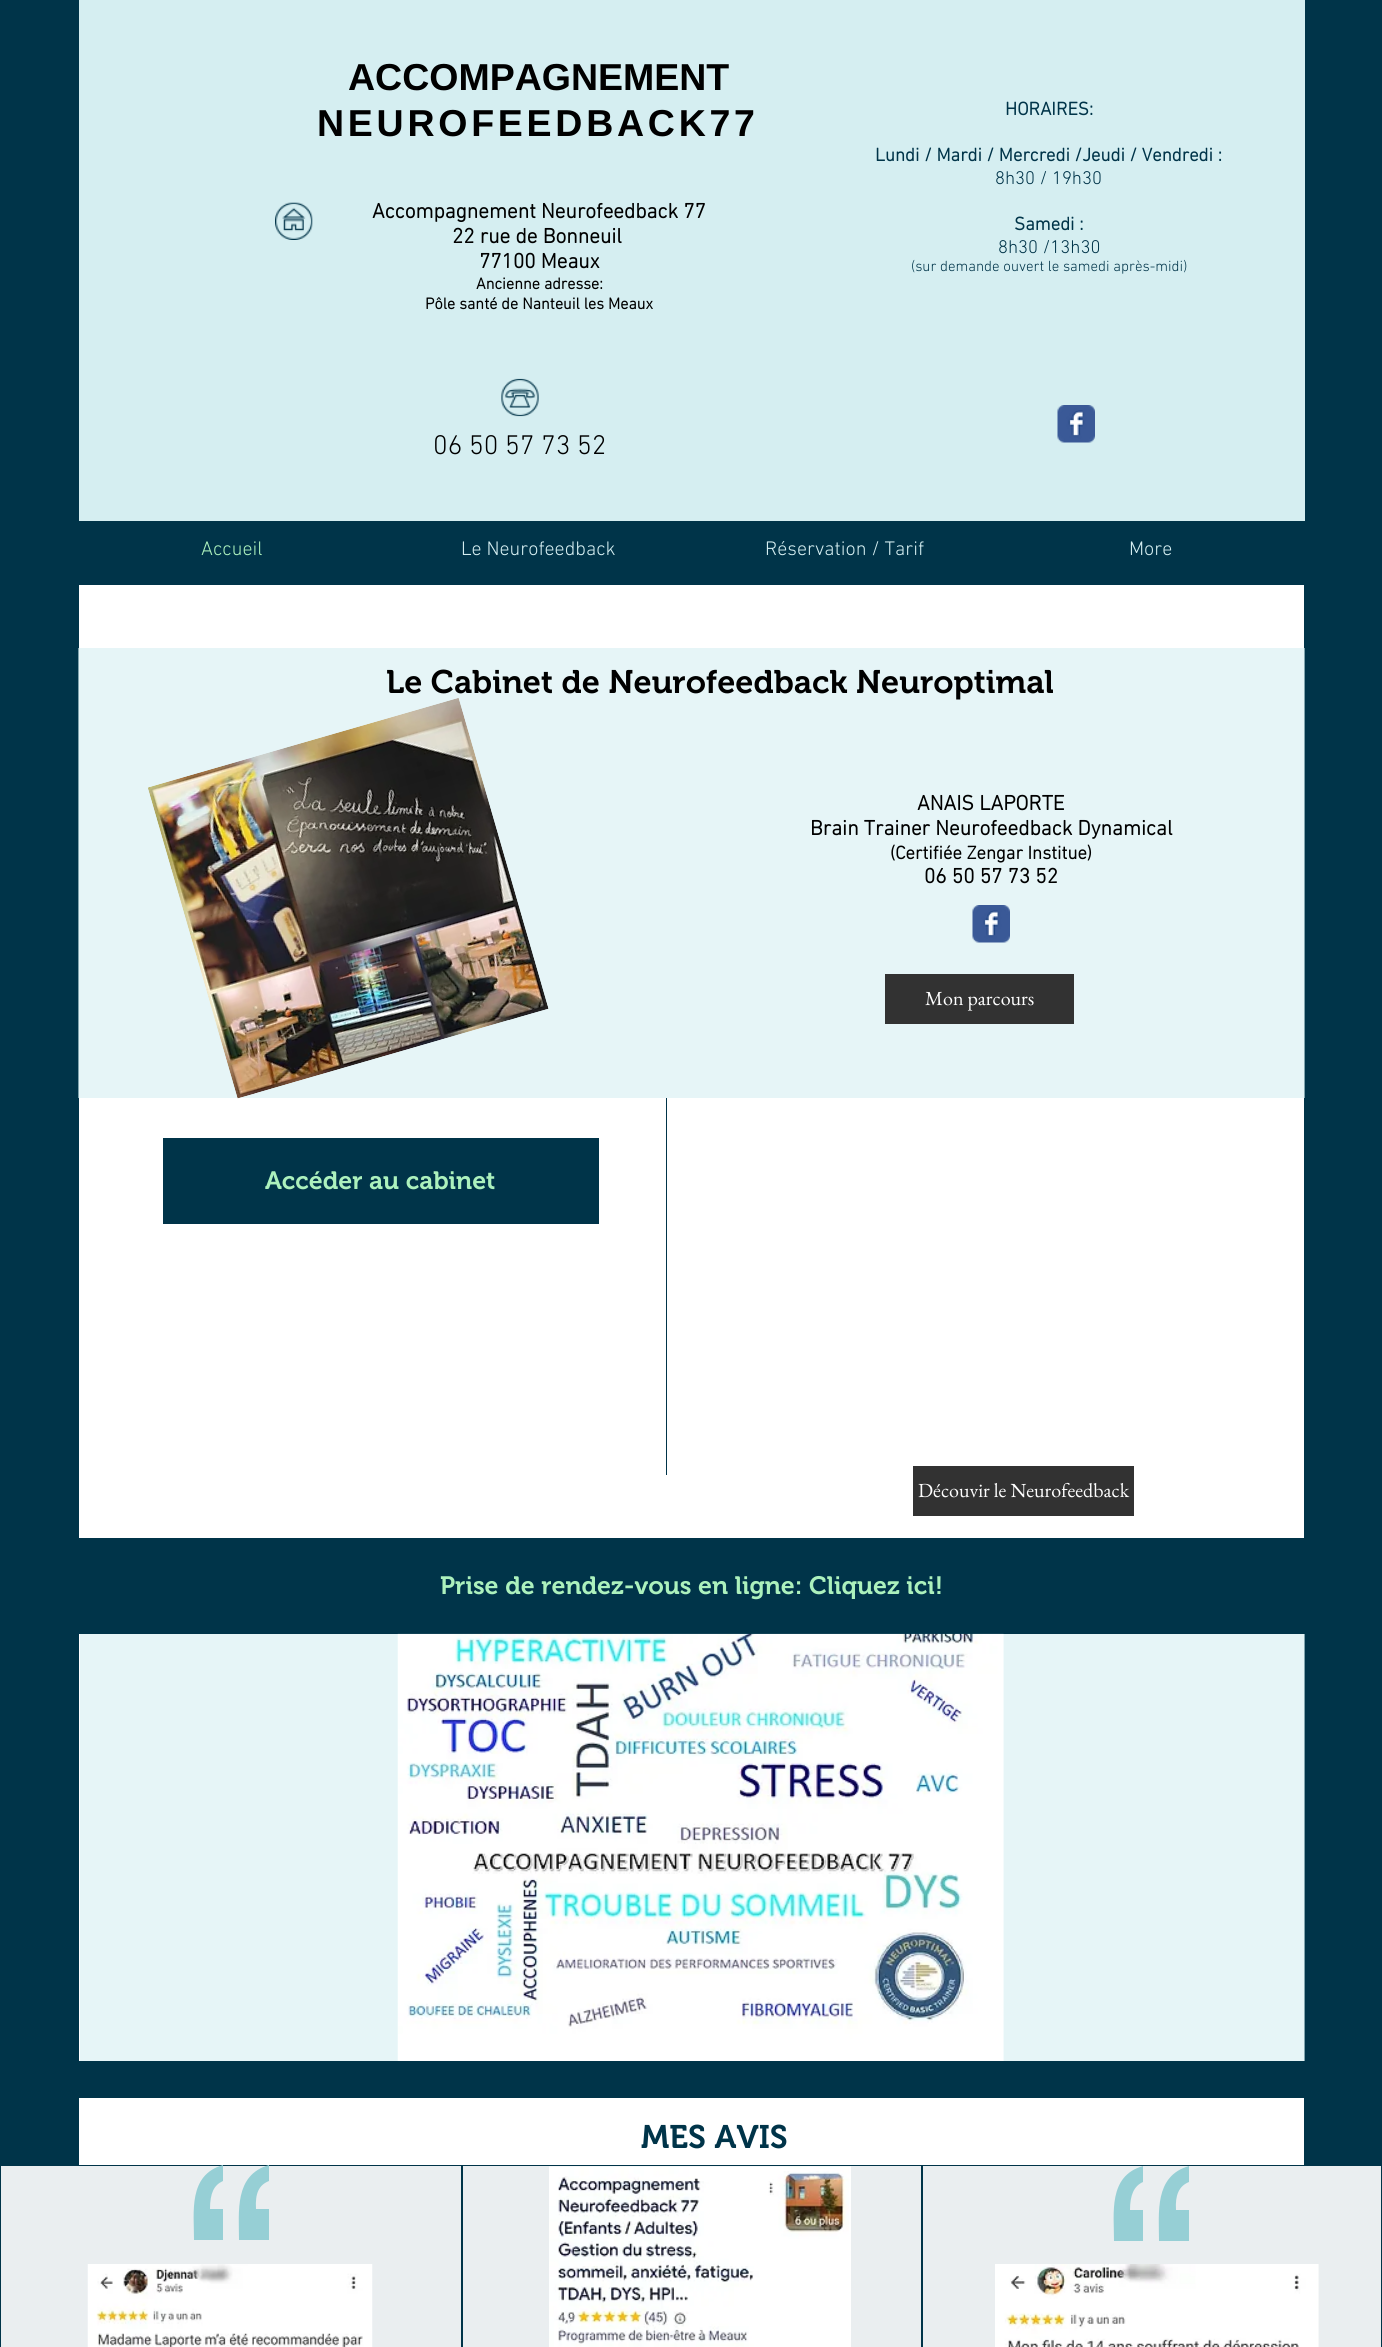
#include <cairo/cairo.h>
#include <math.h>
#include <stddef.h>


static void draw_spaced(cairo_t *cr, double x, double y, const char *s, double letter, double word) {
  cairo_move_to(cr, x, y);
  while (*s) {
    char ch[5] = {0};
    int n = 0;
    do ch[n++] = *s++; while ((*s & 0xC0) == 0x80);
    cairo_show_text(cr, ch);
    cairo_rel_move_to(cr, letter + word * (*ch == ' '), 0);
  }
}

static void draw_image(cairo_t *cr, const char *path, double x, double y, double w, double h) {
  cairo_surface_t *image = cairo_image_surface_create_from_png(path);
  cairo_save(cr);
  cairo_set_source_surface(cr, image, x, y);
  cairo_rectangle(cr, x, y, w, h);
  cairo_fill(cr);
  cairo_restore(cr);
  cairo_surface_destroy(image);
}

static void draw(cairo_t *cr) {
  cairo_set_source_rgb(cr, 0, 52 / 255.0, 73 / 255.0);
  cairo_paint(cr);
  cairo_set_source_rgb(cr, 213 / 255.0, 238 / 255.0, 241 / 255.0);
  cairo_rectangle(cr, 79, 0, 1226, 521);
  cairo_fill(cr);
  draw_image(cr, "images/1.png", 275, 202, 38, 38);
  draw_image(cr, "images/2.png", 501, 378, 38, 39);
  draw_image(cr, "images/3.png", 1057, 405, 38, 38);
  cairo_set_source_rgb(cr, 128 / 255.0, 164 / 255.0, 174 / 255.0);
  cairo_rectangle(cr, 78, 648, 1227, 450);
  cairo_fill(cr);
  cairo_set_source_rgb(cr, 1, 1, 1);
  cairo_rectangle(cr, 79, 585, 1225, 1580);
  cairo_fill(cr);
  cairo_set_source_rgb(cr, 230 / 255.0, 245 / 255.0, 247 / 255.0);
  cairo_rectangle(cr, 80, 1634, 1224, 427);
  cairo_fill(cr);
  cairo_rectangle(cr, 79, 648, 1225, 450);
  cairo_fill(cr);
  draw_image(cr, "images/5.png", 972, 905, 38, 38);
  cairo_set_source_rgb(cr, 50 / 255.0, 50 / 255.0, 50 / 255.0);
  cairo_rectangle(cr, 885, 974, 189, 50);
  cairo_fill(cr);
  cairo_set_source_rgb(cr, 0, 52 / 255.0, 73 / 255.0);
  cairo_rectangle(cr, 163, 1138, 436, 86);
  cairo_fill(cr);
  cairo_rectangle(cr, 666, 1098, 1, 377);
  cairo_fill(cr);
  cairo_set_source_rgb(cr, 50 / 255.0, 50 / 255.0, 50 / 255.0);
  cairo_rectangle(cr, 913, 1466, 221, 50);
  cairo_fill(cr);
  cairo_set_source_rgb(cr, 0, 52 / 255.0, 73 / 255.0);
  cairo_rectangle(cr, 79, 1538, 1225, 96);
  cairo_fill(cr);
  draw_image(cr, "images/6.png", 397, 1633, 607, 428);
  cairo_rectangle(cr, 79, 2061, 1225, 37);
  cairo_fill(cr);
  cairo_set_source_rgb(cr, 234 / 255.0, 238 / 255.0, 240 / 255.0);
  cairo_rectangle(cr, 1, 2166, 460, 181);
  cairo_fill(cr);
  cairo_set_source_rgb(cr, 150 / 255.0, 207 / 255.0, 213 / 255.0);
  cairo_new_path(cr);
  cairo_move_to(cr, 194, 2240);
  cairo_curve_to(cr, 194, 2212, 188, 2175, 223, 2165);
  cairo_line_to(cr, 223, 2181);
  cairo_curve_to(cr, 214, 2185, 210, 2193, 210, 2209);
  cairo_line_to(cr, 223, 2209);
  cairo_line_to(cr, 223, 2240);
  cairo_close_path(cr);
  cairo_fill(cr);
  cairo_new_path(cr);
  cairo_move_to(cr, 239, 2240);
  cairo_curve_to(cr, 239, 2212, 234, 2175, 269, 2165);
  cairo_line_to(cr, 269, 2181);
  cairo_curve_to(cr, 259, 2185, 255, 2193, 256, 2209);
  cairo_line_to(cr, 269, 2209);
  cairo_line_to(cr, 269, 2240);
  cairo_close_path(cr);
  cairo_fill(cr);
  draw_image(cr, "images/7.png", 87, 2264, 286, 83);
  cairo_set_source_rgb(cr, 234 / 255.0, 238 / 255.0, 240 / 255.0);
  cairo_rectangle(cr, 463, 2166, 458, 181);
  cairo_fill(cr);
  draw_image(cr, "images/8.png", 549, 2166, 302, 181);
  cairo_rectangle(cr, 923, 2166, 458, 181);
  cairo_fill(cr);
  cairo_set_source_rgb(cr, 150 / 255.0, 207 / 255.0, 213 / 255.0);
  cairo_new_path(cr);
  cairo_move_to(cr, 1114, 2241);
  cairo_curve_to(cr, 1114, 2213, 1108, 2176, 1143, 2166);
  cairo_line_to(cr, 1143, 2182);
  cairo_curve_to(cr, 1134, 2186, 1130, 2195, 1130, 2210);
  cairo_line_to(cr, 1143, 2210);
  cairo_line_to(cr, 1143, 2241);
  cairo_close_path(cr);
  cairo_fill(cr);
  cairo_new_path(cr);
  cairo_move_to(cr, 1159, 2241);
  cairo_curve_to(cr, 1159, 2213, 1154, 2176, 1189, 2166);
  cairo_line_to(cr, 1189, 2182);
  cairo_curve_to(cr, 1179, 2186, 1175, 2195, 1176, 2210);
  cairo_line_to(cr, 1189, 2210);
  cairo_line_to(cr, 1189, 2241);
  cairo_close_path(cr);
  cairo_fill(cr);
  draw_image(cr, "images/9.png", 995, 2264, 324, 83);
  cairo_set_source_rgb(cr, 128 / 255.0, 164 / 255.0, 174 / 255.0);
  cairo_rectangle(cr, 1304, 1634, 1, 427);
  cairo_fill(cr);
  cairo_select_font_face(cr, "Liberation Sans", CAIRO_FONT_SLANT_NORMAL, CAIRO_FONT_WEIGHT_BOLD);
  cairo_set_font_size(cr, 37.5);
  cairo_set_source_rgb(cr, 0, 0, 0);
  cairo_move_to(cr, 348, 90);
  cairo_show_text(cr, "ACCOMPAGNEMENT");
  draw_spaced(cr, 317, 136, "NEUROFEEDBACK77", 3.75, 0);
  cairo_select_font_face(cr, "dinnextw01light", CAIRO_FONT_SLANT_NORMAL, CAIRO_FONT_WEIGHT_BOLD);
  cairo_set_font_size(cr, 18.75);
  cairo_set_source_rgb(cr, 0, 52 / 255.0, 73 / 255.0);
  cairo_move_to(cr, 1005, 115);
  cairo_show_text(cr, "HORAIRES:");
  cairo_move_to(cr, 875, 161);
  cairo_show_text(cr, "Lundi / Mardi / Mercredi /Jeudi / Vendredi :");
  cairo_select_font_face(cr, "dinnextw01light Light", CAIRO_FONT_SLANT_NORMAL, CAIRO_FONT_WEIGHT_NORMAL);
  cairo_move_to(cr, 995, 184);
  cairo_show_text(cr, "8h30 / 19h30");
  cairo_select_font_face(cr, "dinnextw01light", CAIRO_FONT_SLANT_NORMAL, CAIRO_FONT_WEIGHT_BOLD);
  cairo_move_to(cr, 1014, 230);
  cairo_show_text(cr, "Samedi :");
  cairo_select_font_face(cr, "dinnextw01light Light", CAIRO_FONT_SLANT_NORMAL, CAIRO_FONT_WEIGHT_NORMAL);
  cairo_move_to(cr, 998, 253);
  cairo_show_text(cr, "8h30 /13h30");
  cairo_set_font_size(cr, 15);
  cairo_move_to(cr, 911, 271);
  cairo_show_text(cr, "(sur demande ouvert le samedi après-midi)");
  cairo_select_font_face(cr, "dinnextw01light", CAIRO_FONT_SLANT_NORMAL, CAIRO_FONT_WEIGHT_BOLD);
  cairo_set_font_size(cr, 21.25);
  cairo_set_source_rgb(cr, 0, 0, 0);
  cairo_move_to(cr, 372, 218);
  cairo_show_text(cr, "Accompagnement Neurofeedback 77");
  cairo_move_to(cr, 452, 243);
  cairo_show_text(cr, "22 rue de Bonneuil");
  cairo_move_to(cr, 479, 268);
  cairo_show_text(cr, "77100 Meaux");
  cairo_set_font_size(cr, 16.25);
  cairo_move_to(cr, 476, 289);
  cairo_show_text(cr, "Ancienne adresse:");
  cairo_move_to(cr, 425, 309);
  cairo_show_text(cr, "Pôle santé de Nanteuil les Meaux");
  cairo_select_font_face(cr, "dinnextw01light Light", CAIRO_FONT_SLANT_NORMAL, CAIRO_FONT_WEIGHT_NORMAL);
  cairo_set_font_size(cr, 27.5);
  cairo_move_to(cr, 433, 454);
  cairo_show_text(cr, "06 50 57 73 52");
  cairo_set_font_size(cr, 20);
  cairo_set_source_rgb(cr, 172 / 255.0, 241 / 255.0, 189 / 255.0);
  cairo_move_to(cr, 201, 555);
  cairo_show_text(cr, "Accueil");
  cairo_set_source_rgb(cr, 213 / 255.0, 238 / 255.0, 241 / 255.0);
  cairo_move_to(cr, 461, 555);
  cairo_show_text(cr, "Le Neurofeedback");
  cairo_move_to(cr, 765, 555);
  cairo_show_text(cr, "Réservation / Tarif");
  cairo_move_to(cr, 1129, 555);
  cairo_show_text(cr, "More");
  cairo_select_font_face(cr, "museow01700 SemiBold", CAIRO_FONT_SLANT_NORMAL, CAIRO_FONT_WEIGHT_NORMAL);
  cairo_set_font_size(cr, 32.5);
  cairo_set_source_rgb(cr, 0, 0, 0);
  cairo_move_to(cr, 386, 693);
  cairo_show_text(cr, "Le Cabinet de Neurofeedback Neuroptimal");
  draw_image(cr, "images/4.png", 148, 698, 401, 401);
  cairo_select_font_face(cr, "dinnextw01light", CAIRO_FONT_SLANT_NORMAL, CAIRO_FONT_WEIGHT_BOLD);
  cairo_set_font_size(cr, 21.25);
  cairo_move_to(cr, 917, 810);
  cairo_show_text(cr, "ANAIS LAPORTE");
  cairo_move_to(cr, 810, 835);
  cairo_show_text(cr, "Brain Trainer Neurofeedback Dynamical");
  cairo_set_font_size(cr, 18.75);
  cairo_move_to(cr, 890, 859);
  cairo_show_text(cr, "(Certifiée Zengar Institue)");
  cairo_set_font_size(cr, 21.25);
  cairo_move_to(cr, 924, 883);
  cairo_show_text(cr, "06 50 57 73 52");
  cairo_select_font_face(cr, "EB Garamond", CAIRO_FONT_SLANT_NORMAL, CAIRO_FONT_WEIGHT_NORMAL);
  cairo_set_font_size(cr, 20);
  cairo_set_source_rgb(cr, 1, 1, 1);
  cairo_move_to(cr, 925, 1005);
  cairo_show_text(cr, "Mon parcours");
  cairo_select_font_face(cr, "museow01700 SemiBold", CAIRO_FONT_SLANT_NORMAL, CAIRO_FONT_WEIGHT_NORMAL);
  cairo_set_font_size(cr, 25);
  cairo_set_source_rgb(cr, 172 / 255.0, 241 / 255.0, 189 / 255.0);
  cairo_move_to(cr, 265, 1189);
  cairo_show_text(cr, "Accéder au cabinet");
  cairo_select_font_face(cr, "EB Garamond", CAIRO_FONT_SLANT_NORMAL, CAIRO_FONT_WEIGHT_NORMAL);
  cairo_set_font_size(cr, 20);
  cairo_set_source_rgb(cr, 1, 1, 1);
  cairo_move_to(cr, 918, 1497);
  cairo_show_text(cr, "Découvir le Neurofeedback");
  cairo_select_font_face(cr, "museow01700 SemiBold", CAIRO_FONT_SLANT_NORMAL, CAIRO_FONT_WEIGHT_NORMAL);
  cairo_set_font_size(cr, 25);
  cairo_set_source_rgb(cr, 172 / 255.0, 241 / 255.0, 189 / 255.0);
  cairo_move_to(cr, 440, 1594);
  cairo_show_text(cr, "Prise de rendez-vous en ligne: Cliquez ici!");
  cairo_set_font_size(cr, 32.5);
  cairo_set_source_rgb(cr, 0, 52 / 255.0, 73 / 255.0);
  cairo_move_to(cr, 641, 2148);
  cairo_show_text(cr, "MES AVIS");
}

int main(void) {
  cairo_surface_t *surface = cairo_image_surface_create(CAIRO_FORMAT_RGB24, 1382, 2347);
  cairo_t *cr = cairo_create(surface);
  cairo_font_options_t *options = cairo_font_options_create();
  cairo_font_options_set_hint_metrics(options, CAIRO_HINT_METRICS_OFF);
  cairo_font_options_set_hint_style(options, CAIRO_HINT_STYLE_NONE);
  cairo_set_font_options(cr, options);
  cairo_set_miter_limit(cr, 4);
  draw(cr);
  cairo_surface_write_to_png(surface, "out.png");
  cairo_font_options_destroy(options);
  cairo_destroy(cr);
  cairo_surface_destroy(surface);
  return 0;
}
